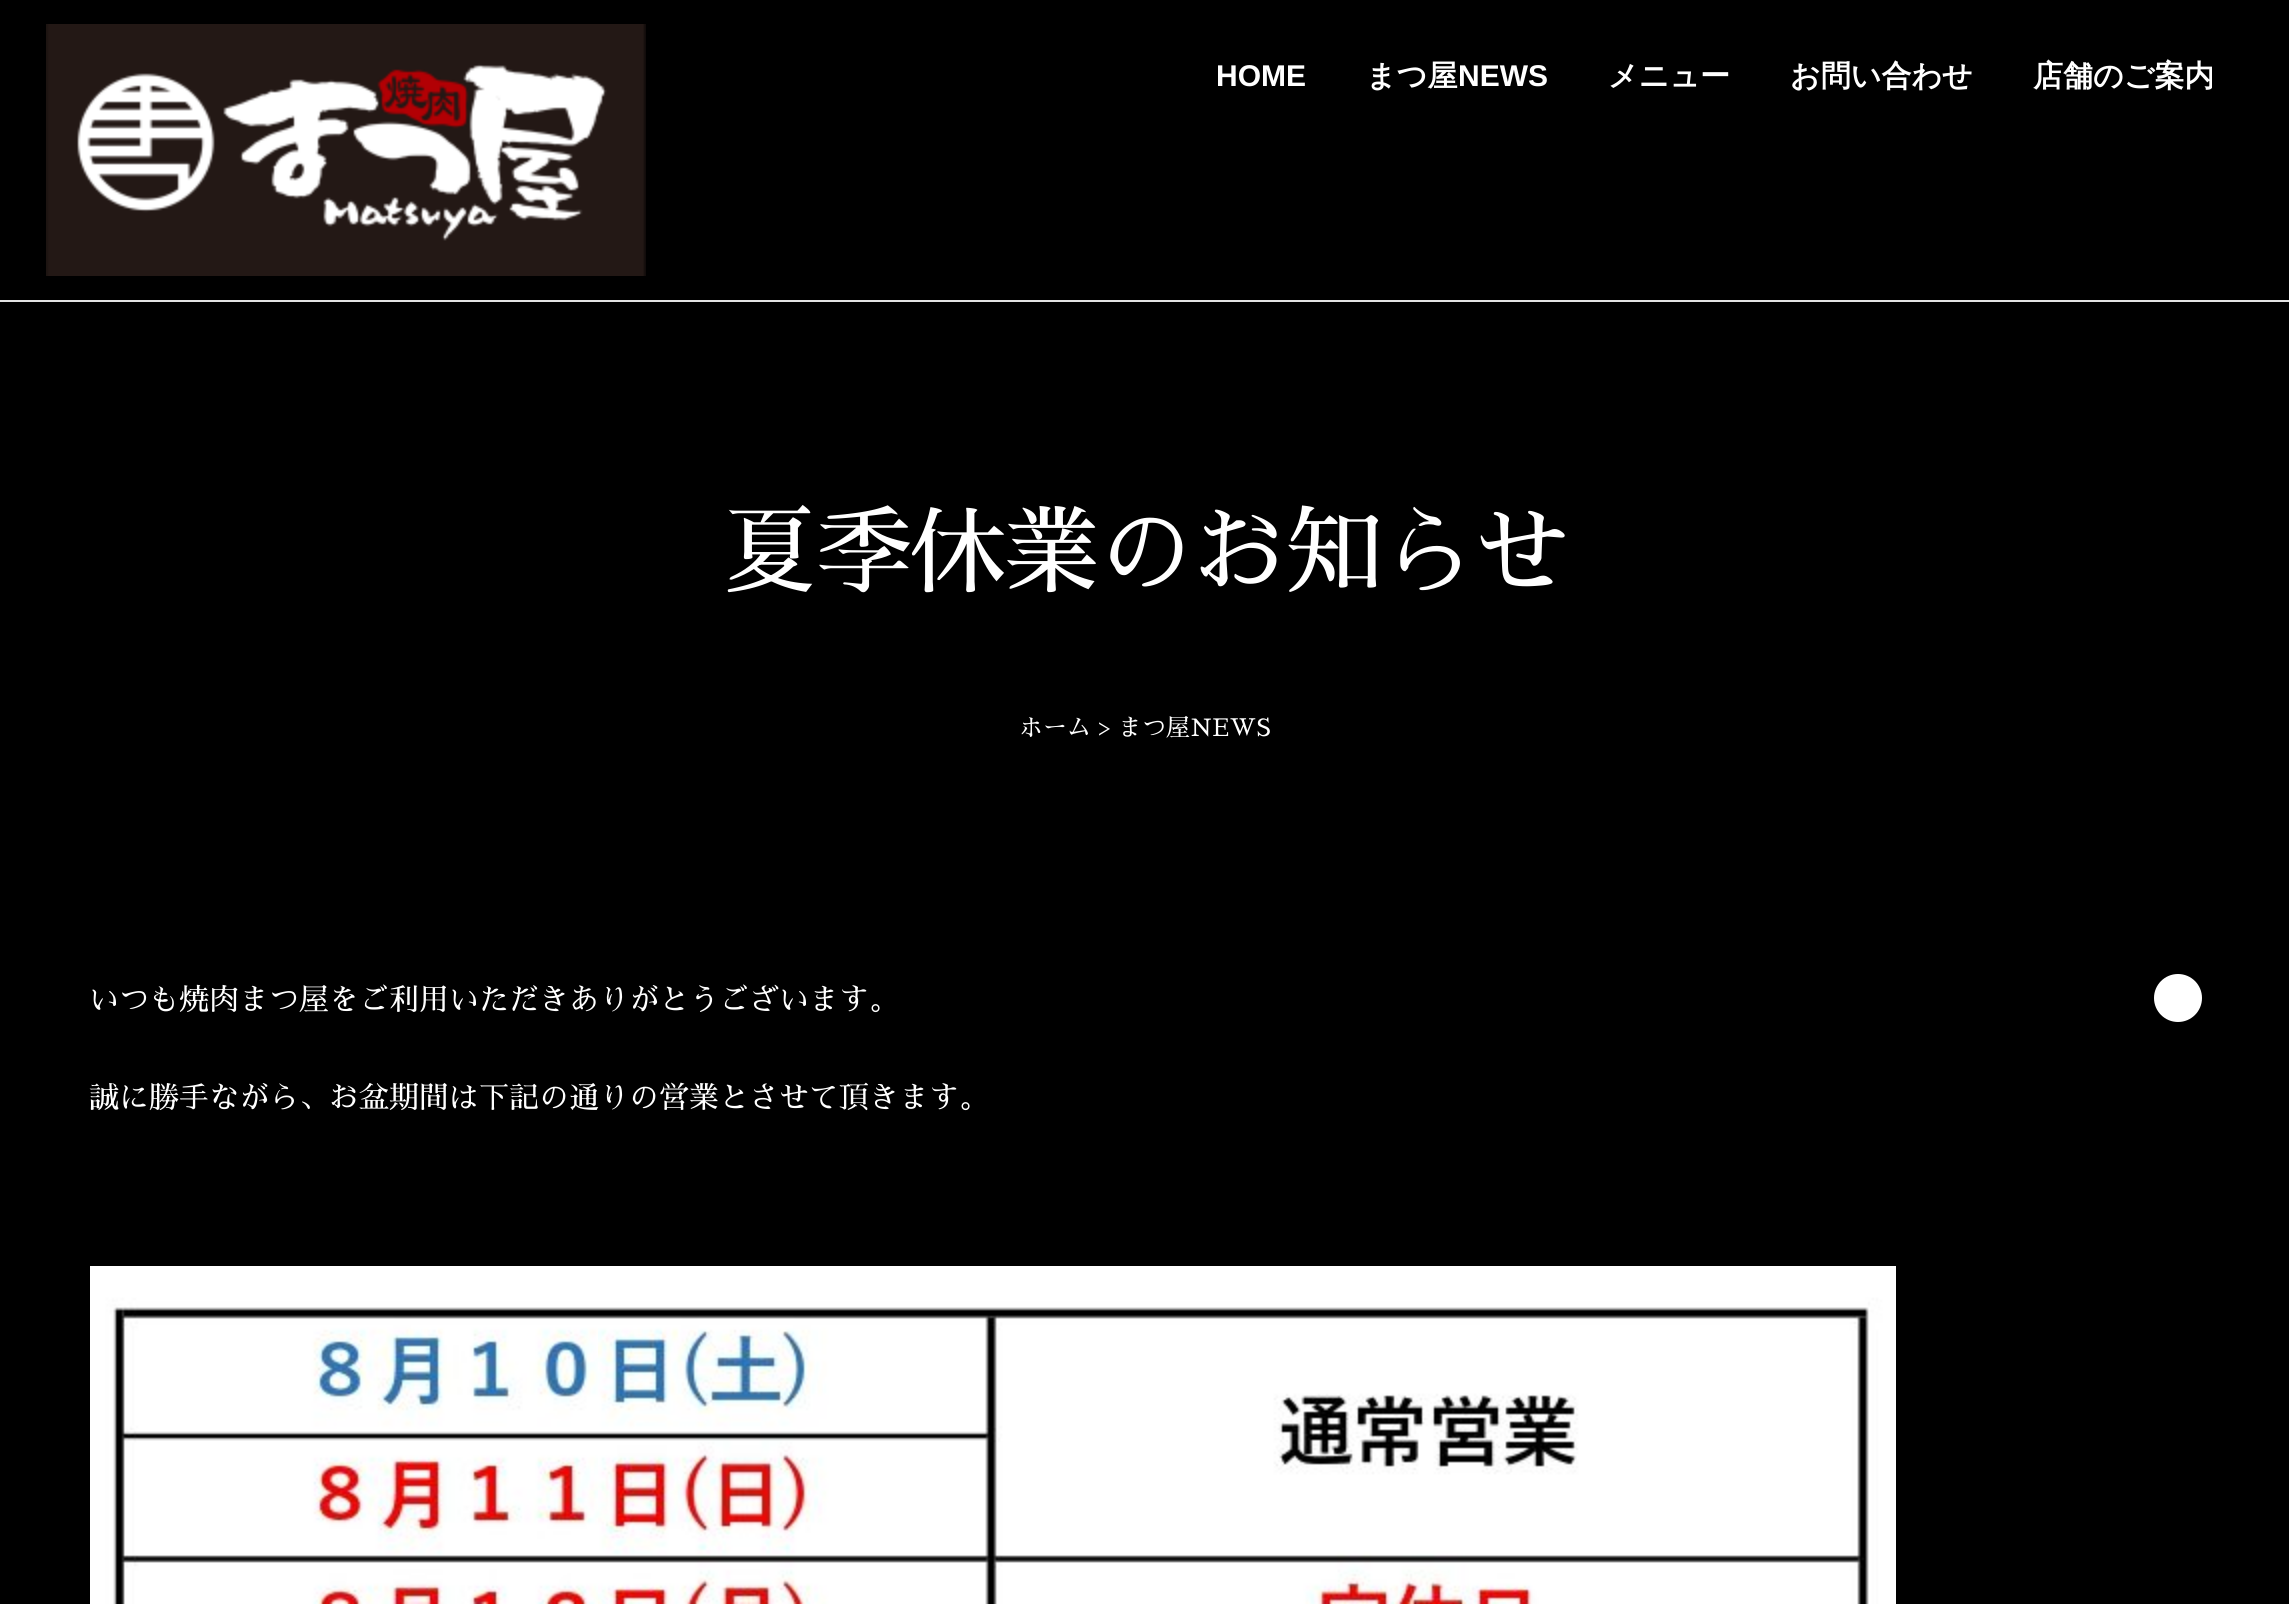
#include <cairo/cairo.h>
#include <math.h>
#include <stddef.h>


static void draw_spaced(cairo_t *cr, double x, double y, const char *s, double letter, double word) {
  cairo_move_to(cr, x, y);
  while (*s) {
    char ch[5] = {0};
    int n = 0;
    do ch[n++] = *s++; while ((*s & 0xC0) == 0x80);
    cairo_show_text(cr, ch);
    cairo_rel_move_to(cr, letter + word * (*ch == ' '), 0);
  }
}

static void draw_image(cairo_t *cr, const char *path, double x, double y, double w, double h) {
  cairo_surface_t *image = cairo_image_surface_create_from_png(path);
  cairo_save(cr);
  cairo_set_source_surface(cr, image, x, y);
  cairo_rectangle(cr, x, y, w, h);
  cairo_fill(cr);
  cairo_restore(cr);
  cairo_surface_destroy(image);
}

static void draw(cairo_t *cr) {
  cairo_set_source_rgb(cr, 0, 0, 0);
  cairo_paint(cr);
  cairo_set_source_rgb(cr, 227 / 255.0, 227 / 255.0, 227 / 255.0);
  cairo_rectangle(cr, 0, 300, 2289, 2);
  cairo_fill(cr);
  draw_image(cr, "images/1.png", 46, 24, 600, 252);
  cairo_set_source_rgb(cr, 1, 1, 1);
  cairo_arc(cr, 2178, 998, 24, 0, 2 * M_PI);
  cairo_fill(cr);
  draw_image(cr, "images/2.png", 90, 1266, 1806, 338);
  cairo_select_font_face(cr, "Liberation Sans", CAIRO_FONT_SLANT_NORMAL, CAIRO_FONT_WEIGHT_BOLD);
  cairo_set_font_size(cr, 30);
  cairo_move_to(cr, 1216, 86);
  cairo_show_text(cr, "HOME");
  cairo_select_font_face(cr, "WenQuanYi Zen Hei", CAIRO_FONT_SLANT_NORMAL, CAIRO_FONT_WEIGHT_BOLD);
  cairo_move_to(cr, 1366, 86);
  cairo_show_text(cr, "まつ屋");
  cairo_select_font_face(cr, "Liberation Sans", CAIRO_FONT_SLANT_NORMAL, CAIRO_FONT_WEIGHT_BOLD);
  cairo_move_to(cr, 1458, 86);
  cairo_show_text(cr, "NEWS");
  cairo_select_font_face(cr, "WenQuanYi Zen Hei", CAIRO_FONT_SLANT_NORMAL, CAIRO_FONT_WEIGHT_BOLD);
  cairo_move_to(cr, 1608, 86);
  cairo_show_text(cr, "メニュー");
  cairo_move_to(cr, 1790, 86);
  cairo_show_text(cr, "お問い合わせ");
  cairo_move_to(cr, 2033, 86);
  cairo_show_text(cr, "店舗のご案内");
  cairo_select_font_face(cr, "Sawarabi Mincho", CAIRO_FONT_SLANT_NORMAL, CAIRO_FONT_WEIGHT_NORMAL);
  cairo_set_font_size(cr, 96);
  draw_spaced(cr, 722, 586, "夏季休業のお知らせ", -2, 0);
  cairo_set_font_size(cr, 24);
  cairo_move_to(cr, 1019, 736);
  cairo_show_text(cr, "ホーム > まつ屋NEWS");
  cairo_set_font_size(cr, 30);
  cairo_move_to(cr, 89, 1010);
  cairo_show_text(cr, "いつも焼肉まつ屋をご利用いただきありがとうございます。");
  cairo_move_to(cr, 89, 1108);
  cairo_show_text(cr, "誠に勝手ながら、お盆期間は下記の通りの営業とさせて頂きます。");
}

int main(void) {
  cairo_surface_t *surface = cairo_image_surface_create(CAIRO_FORMAT_RGB24, 2289, 1604);
  cairo_t *cr = cairo_create(surface);
  cairo_font_options_t *options = cairo_font_options_create();
  cairo_font_options_set_hint_metrics(options, CAIRO_HINT_METRICS_OFF);
  cairo_font_options_set_hint_style(options, CAIRO_HINT_STYLE_NONE);
  cairo_set_font_options(cr, options);
  cairo_set_miter_limit(cr, 4);
  draw(cr);
  cairo_surface_write_to_png(surface, "out.png");
  cairo_font_options_destroy(options);
  cairo_destroy(cr);
  cairo_surface_destroy(surface);
  return 0;
}
